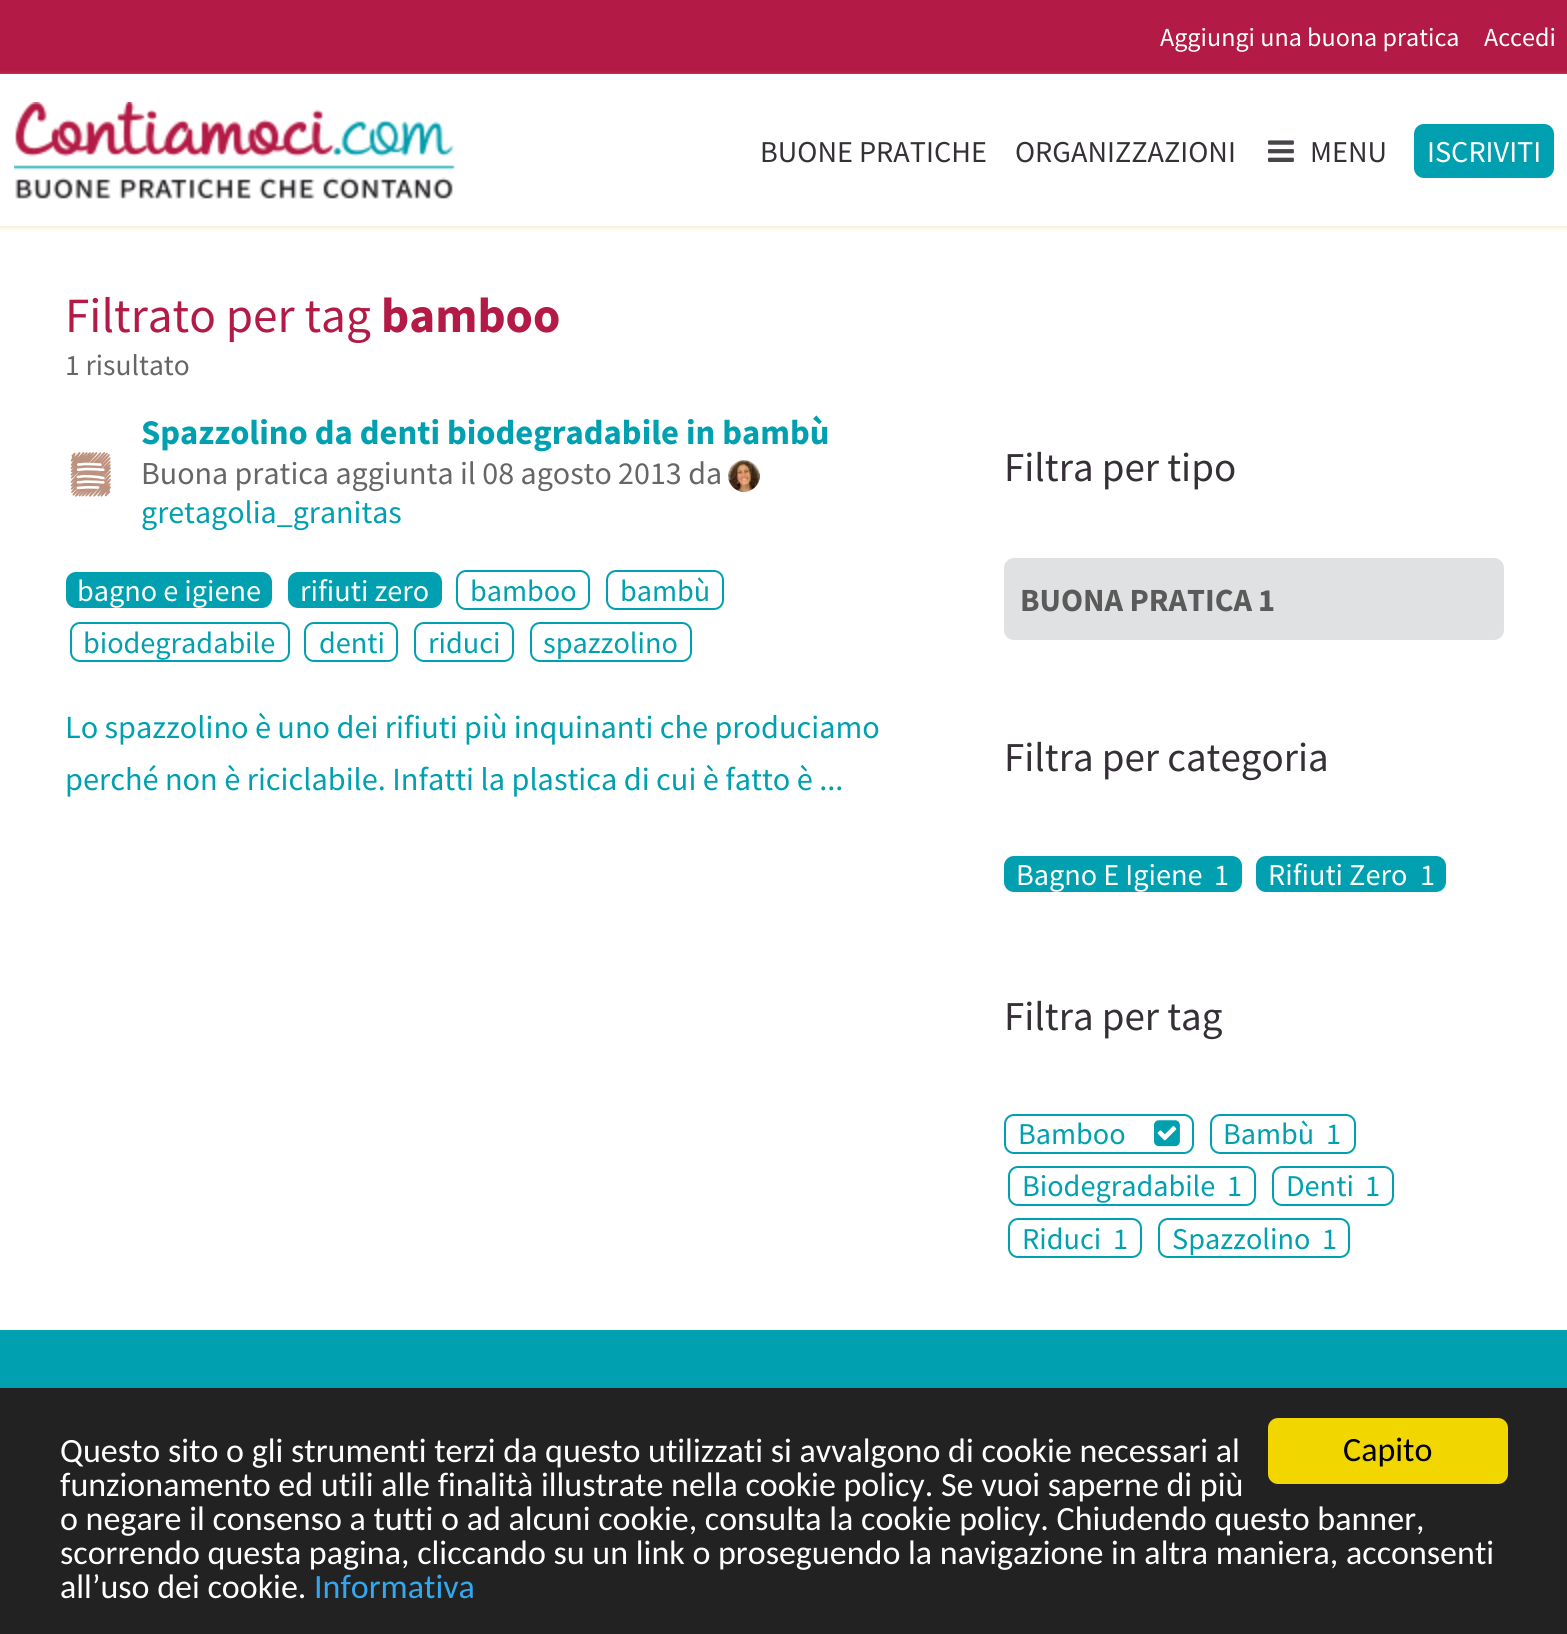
#include <cairo/cairo.h>
#include <math.h>
#include <stddef.h>


static void draw_spaced(cairo_t *cr, double x, double y, const char *s, double letter, double word) {
  cairo_move_to(cr, x, y);
  while (*s) {
    char ch[5] = {0};
    int n = 0;
    do ch[n++] = *s++; while ((*s & 0xC0) == 0x80);
    cairo_show_text(cr, ch);
    cairo_rel_move_to(cr, letter + word * (*ch == ' '), 0);
  }
}

static void rounded_rect(cairo_t *cr, double x, double y, double w, double h, double r) {
  cairo_new_sub_path(cr);
  cairo_arc(cr, x + w - r, y + h - r, r, 0, M_PI / 2);
  cairo_arc(cr, x + r, y + h - r, r, M_PI / 2, M_PI);
  cairo_arc(cr, x + r, y + r, r, M_PI, 1.5 * M_PI);
  cairo_arc(cr, x + w - r, y + r, r, 1.5 * M_PI, 2 * M_PI);
  cairo_close_path(cr);
}

static void draw_shadow(cairo_t *cr, double x, double y, double w, double h, double r, double blur, double alpha) {
  cairo_push_group_with_content(cr, CAIRO_CONTENT_ALPHA);
  cairo_set_operator(cr, CAIRO_OPERATOR_SOURCE);
  for (int i = 15; i >= -15 && fmin(w, h) + blur * i / 3 > 0; i -= 2) {
    double e = blur * i / 6;
    cairo_set_source_rgba(cr, 0, 0, 0, alpha * erfc((i - 1) / 8.5) / 2);
    rounded_rect(cr, x - e, y - e, w + 2 * e, h + 2 * e, fmax(0, fmin(r + e + blur * .6, fmin(w, h) / 2 + e)));
    cairo_fill(cr);
  }
  cairo_pattern_t *soft = cairo_pop_group(cr);
  cairo_mask(cr, soft);
  cairo_pattern_destroy(soft);
}

static void draw_image(cairo_t *cr, const char *path, double x, double y, double w, double h) {
  cairo_surface_t *image = cairo_image_surface_create_from_png(path);
  cairo_save(cr);
  cairo_set_source_surface(cr, image, x, y);
  cairo_rectangle(cr, x, y, w, h);
  cairo_fill(cr);
  cairo_restore(cr);
  cairo_surface_destroy(image);
}

static void draw(cairo_t *cr) {
  cairo_set_source_rgb(cr, 1, 1, 1);
  cairo_paint(cr);
  cairo_set_source_rgb(cr, 179 / 255.0, 27 / 255.0, 70 / 255.0);
  cairo_rectangle(cr, 0, 0, 1567, 74);
  cairo_fill(cr);
  cairo_save(cr);
  cairo_set_fill_rule(cr, CAIRO_FILL_RULE_EVEN_ODD);
  cairo_new_path(cr);
  cairo_move_to(cr, 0, 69);
  cairo_line_to(cr, 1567, 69);
  cairo_line_to(cr, 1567, 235);
  cairo_line_to(cr, 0, 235);
  cairo_close_path(cr);
  cairo_move_to(cr, 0, 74);
  cairo_line_to(cr, 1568, 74);
  cairo_line_to(cr, 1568, 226);
  cairo_line_to(cr, 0, 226);
  cairo_close_path(cr);
  cairo_clip(cr);
  cairo_set_source_rgb(cr, 244 / 255.0, 237 / 255.0, 207 / 255.0);
  draw_shadow(cr, 0, 76, 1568, 152, 0, 2, 1);
  cairo_restore(cr);
  draw_image(cr, "images/1.png", 14, 102, 441, 97);
  draw_image(cr, "images/2.png", 1268, 140, 26, 22);
  cairo_set_source_rgb(cr, 0, 160 / 255.0, 176 / 255.0);
  rounded_rect(cr, 1414, 124, 140, 54, 10);
  cairo_fill(cr);
  draw_image(cr, "images/3.png", 70, 452, 41, 45);
  draw_image(cr, "images/4.png", 728, 460, 32, 32);
  rounded_rect(cr, 66, 572, 206, 36, 10);
  cairo_fill(cr);
  rounded_rect(cr, 288, 572, 154, 36, 10);
  cairo_fill(cr);
  rounded_rect(cr, 457, 571, 132, 38, 9);
  cairo_stroke(cr);
  rounded_rect(cr, 607, 571, 116, 38, 9);
  cairo_stroke(cr);
  rounded_rect(cr, 71, 623, 218, 38, 9);
  cairo_stroke(cr);
  rounded_rect(cr, 305, 623, 92, 38, 9);
  cairo_stroke(cr);
  rounded_rect(cr, 415, 623, 98, 38, 9);
  cairo_stroke(cr);
  rounded_rect(cr, 531, 623, 160, 38, 9);
  cairo_stroke(cr);
  cairo_set_source_rgb(cr, 224 / 255.0, 225 / 255.0, 226 / 255.0);
  rounded_rect(cr, 1004, 558, 500, 82, 10);
  cairo_fill(cr);
  cairo_set_source_rgb(cr, 0, 160 / 255.0, 176 / 255.0);
  rounded_rect(cr, 1004, 856, 238, 36, 10);
  cairo_fill(cr);
  rounded_rect(cr, 1256, 856, 190, 36, 10);
  cairo_fill(cr);
  rounded_rect(cr, 1005, 1115, 188, 38, 9);
  cairo_stroke(cr);
  draw_image(cr, "images/5.png", 1154, 1120, 26, 27);
  rounded_rect(cr, 1211, 1115, 144, 38, 9);
  cairo_stroke(cr);
  rounded_rect(cr, 1009, 1167, 246, 38, 9);
  cairo_stroke(cr);
  rounded_rect(cr, 1273, 1167, 120, 38, 9);
  cairo_stroke(cr);
  rounded_rect(cr, 1009, 1219, 132, 38, 9);
  cairo_stroke(cr);
  rounded_rect(cr, 1159, 1219, 190, 38, 9);
  cairo_stroke(cr);
  cairo_rectangle(cr, 0, 1330, 1567, 58);
  cairo_fill(cr);
  cairo_set_source_rgb(cr, 34 / 255.0, 34 / 255.0, 34 / 255.0);
  cairo_rectangle(cr, 0, 1388, 1567, 246);
  cairo_fill(cr);
  cairo_set_source_rgb(cr, 241 / 255.0, 214 / 255.0, 0);
  rounded_rect(cr, 1268, 1418, 240, 66, 10);
  cairo_fill(cr);
  cairo_select_font_face(cr, "Source Sans Pro", CAIRO_FONT_SLANT_NORMAL, CAIRO_FONT_WEIGHT_NORMAL);
  cairo_set_font_size(cr, 26.1);
  cairo_set_source_rgb(cr, 1, 1, 1);
  cairo_move_to(cr, 1160, 46);
  cairo_show_text(cr, "Aggiungi una buona pratica");
  cairo_move_to(cr, 1484, 46);
  cairo_show_text(cr, "Accedi");
  cairo_set_font_size(cr, 30.25);
  cairo_set_source_rgb(cr, 53 / 255.0, 48 / 255.0, 54 / 255.0);
  cairo_move_to(cr, 760, 162);
  cairo_show_text(cr, "BUONE PRATICHE");
  cairo_move_to(cr, 1015, 162);
  cairo_show_text(cr, "ORGANIZZAZIONI");
  cairo_move_to(cr, 1310, 162);
  cairo_show_text(cr, "MENU");
  cairo_set_source_rgb(cr, 1, 1, 1);
  cairo_move_to(cr, 1427, 162);
  cairo_show_text(cr, "ISCRIVITI");
  cairo_set_font_size(cr, 49.25);
  cairo_set_source_rgb(cr, 179 / 255.0, 27 / 255.0, 70 / 255.0);
  cairo_move_to(cr, 65, 332);
  cairo_show_text(cr, "Filtrato per tag");
  cairo_select_font_face(cr, "Source Sans Pro", CAIRO_FONT_SLANT_NORMAL, CAIRO_FONT_WEIGHT_BOLD);
  cairo_move_to(cr, 381, 332);
  cairo_show_text(cr, "bamboo");
  cairo_select_font_face(cr, "Source Sans Pro", CAIRO_FONT_SLANT_NORMAL, CAIRO_FONT_WEIGHT_NORMAL);
  cairo_set_font_size(cr, 29.5);
  cairo_set_source_rgb(cr, 102 / 255.0, 102 / 255.0, 102 / 255.0);
  cairo_move_to(cr, 65, 375);
  cairo_show_text(cr, "1 risultato");
  cairo_select_font_face(cr, "Source Sans Pro", CAIRO_FONT_SLANT_NORMAL, CAIRO_FONT_WEIGHT_BOLD);
  cairo_set_font_size(cr, 34.6);
  cairo_set_source_rgb(cr, 0, 160 / 255.0, 176 / 255.0);
  cairo_move_to(cr, 141, 444);
  cairo_show_text(cr, "Spazzolino da denti biodegradabile in bambù");
  cairo_select_font_face(cr, "Source Sans Pro", CAIRO_FONT_SLANT_NORMAL, CAIRO_FONT_WEIGHT_NORMAL);
  cairo_set_font_size(cr, 32);
  cairo_set_source_rgb(cr, 102 / 255.0, 102 / 255.0, 102 / 255.0);
  cairo_move_to(cr, 141, 484);
  cairo_show_text(cr, "Buona pratica aggiunta il 08 agosto 2013 da");
  cairo_set_source_rgb(cr, 0, 160 / 255.0, 176 / 255.0);
  cairo_move_to(cr, 141, 523);
  cairo_show_text(cr, "gretagolia_granitas");
  cairo_set_font_size(cr, 30.25);
  cairo_set_source_rgb(cr, 1, 1, 1);
  cairo_move_to(cr, 77, 601);
  cairo_show_text(cr, "bagno e igiene");
  cairo_move_to(cr, 300, 601);
  cairo_show_text(cr, "rifiuti zero");
  cairo_set_source_rgb(cr, 0, 160 / 255.0, 176 / 255.0);
  cairo_move_to(cr, 470, 601);
  cairo_show_text(cr, "bamboo");
  cairo_move_to(cr, 620, 601);
  cairo_show_text(cr, "bambù");
  cairo_move_to(cr, 83, 653);
  cairo_show_text(cr, "biodegradabile");
  cairo_move_to(cr, 319, 653);
  cairo_show_text(cr, "denti");
  cairo_move_to(cr, 428, 653);
  cairo_show_text(cr, "riduci");
  cairo_move_to(cr, 543, 653);
  cairo_show_text(cr, "spazzolino");
  cairo_set_font_size(cr, 32.3);
  draw_spaced(cr, 65, 738, "Lo spazzolino è uno dei rifiuti più inquinanti che produciamo", 0, -0.1);
  cairo_move_to(cr, 65, 790);
  cairo_show_text(cr, "perché non è riciclabile. Infatti la plastica di cui è fatto è ...");
  cairo_set_font_size(cr, 41);
  cairo_set_source_rgb(cr, 53 / 255.0, 48 / 255.0, 54 / 255.0);
  cairo_move_to(cr, 1004, 481);
  cairo_show_text(cr, "Filtra per tipo");
  cairo_select_font_face(cr, "Source Sans Pro", CAIRO_FONT_SLANT_NORMAL, CAIRO_FONT_WEIGHT_BOLD);
  cairo_set_font_size(cr, 32.3);
  cairo_set_source_rgb(cr, 90 / 255.0, 90 / 255.0, 90 / 255.0);
  cairo_move_to(cr, 1020, 611);
  cairo_show_text(cr, "BUONA PRATICA");
  cairo_move_to(cr, 1258, 611);
  cairo_show_text(cr, "1");
  cairo_select_font_face(cr, "Source Sans Pro", CAIRO_FONT_SLANT_NORMAL, CAIRO_FONT_WEIGHT_NORMAL);
  cairo_set_font_size(cr, 41);
  cairo_set_source_rgb(cr, 53 / 255.0, 48 / 255.0, 54 / 255.0);
  cairo_move_to(cr, 1004, 771);
  cairo_show_text(cr, "Filtra per categoria");
  cairo_set_font_size(cr, 30.25);
  cairo_set_source_rgb(cr, 1, 1, 1);
  cairo_move_to(cr, 1016, 885);
  cairo_show_text(cr, "Bagno E Igiene");
  cairo_move_to(cr, 1214, 885);
  cairo_show_text(cr, "1");
  cairo_move_to(cr, 1268, 885);
  cairo_show_text(cr, "Rifiuti Zero");
  cairo_move_to(cr, 1420, 885);
  cairo_show_text(cr, "1");
  cairo_set_font_size(cr, 41);
  cairo_set_source_rgb(cr, 53 / 255.0, 48 / 255.0, 54 / 255.0);
  cairo_move_to(cr, 1004, 1030);
  cairo_show_text(cr, "Filtra per tag");
  cairo_set_font_size(cr, 30.25);
  cairo_set_source_rgb(cr, 0, 160 / 255.0, 176 / 255.0);
  cairo_move_to(cr, 1018, 1144);
  cairo_show_text(cr, "Bamboo");
  cairo_move_to(cr, 1223, 1144);
  cairo_show_text(cr, "Bambù");
  cairo_move_to(cr, 1326, 1144);
  cairo_show_text(cr, "1");
  cairo_move_to(cr, 1022, 1196);
  cairo_show_text(cr, "Biodegradabile");
  cairo_move_to(cr, 1227, 1196);
  cairo_show_text(cr, "1");
  cairo_move_to(cr, 1286, 1196);
  cairo_show_text(cr, "Denti");
  cairo_move_to(cr, 1365, 1196);
  cairo_show_text(cr, "1");
  cairo_move_to(cr, 1022, 1249);
  cairo_show_text(cr, "Riduci");
  cairo_move_to(cr, 1113, 1249);
  cairo_show_text(cr, "1");
  cairo_move_to(cr, 1172, 1249);
  cairo_show_text(cr, "Spazzolino");
  cairo_move_to(cr, 1322, 1249);
  cairo_show_text(cr, "1");
  cairo_select_font_face(cr, "Carlito", CAIRO_FONT_SLANT_NORMAL, CAIRO_FONT_WEIGHT_NORMAL);
  cairo_set_font_size(cr, 34);
  cairo_set_source_rgb(cr, 0, 0, 0);
  cairo_move_to(cr, 1343, 1461);
  cairo_show_text(cr, "Capito");
  cairo_set_source_rgb(cr, 1, 1, 1);
  cairo_move_to(cr, 60, 1462);
  cairo_show_text(cr, "Questo sito o gli strumenti terzi da questo utilizzati si avvalgono di cookie necessari al");
  cairo_move_to(cr, 60, 1496);
  cairo_show_text(cr, "funzionamento ed utili alle finalità illustrate nella cookie policy. Se vuoi saperne di più");
  cairo_move_to(cr, 60, 1530);
  cairo_show_text(cr, "o negare il consenso a tutti o ad alcuni cookie, consulta la cookie policy. Chiudendo questo banner,");
  cairo_move_to(cr, 60, 1564);
  cairo_show_text(cr, "scorrendo questa pagina, cliccando su un link o proseguendo la navigazione in altra maniera, acconsenti");
  cairo_move_to(cr, 60, 1598);
  cairo_show_text(cr, "all’uso dei cookie.");
  cairo_set_source_rgb(cr, 49 / 255.0, 168 / 255.0, 240 / 255.0);
  cairo_move_to(cr, 314, 1598);
  cairo_show_text(cr, "Informativa");
}

int main(void) {
  cairo_surface_t *surface = cairo_image_surface_create(CAIRO_FORMAT_RGB24, 1567, 1634);
  cairo_t *cr = cairo_create(surface);
  cairo_font_options_t *options = cairo_font_options_create();
  cairo_font_options_set_hint_metrics(options, CAIRO_HINT_METRICS_OFF);
  cairo_font_options_set_hint_style(options, CAIRO_HINT_STYLE_NONE);
  cairo_set_font_options(cr, options);
  cairo_set_miter_limit(cr, 4);
  draw(cr);
  cairo_surface_write_to_png(surface, "out.png");
  cairo_font_options_destroy(options);
  cairo_destroy(cr);
  cairo_surface_destroy(surface);
  return 0;
}
